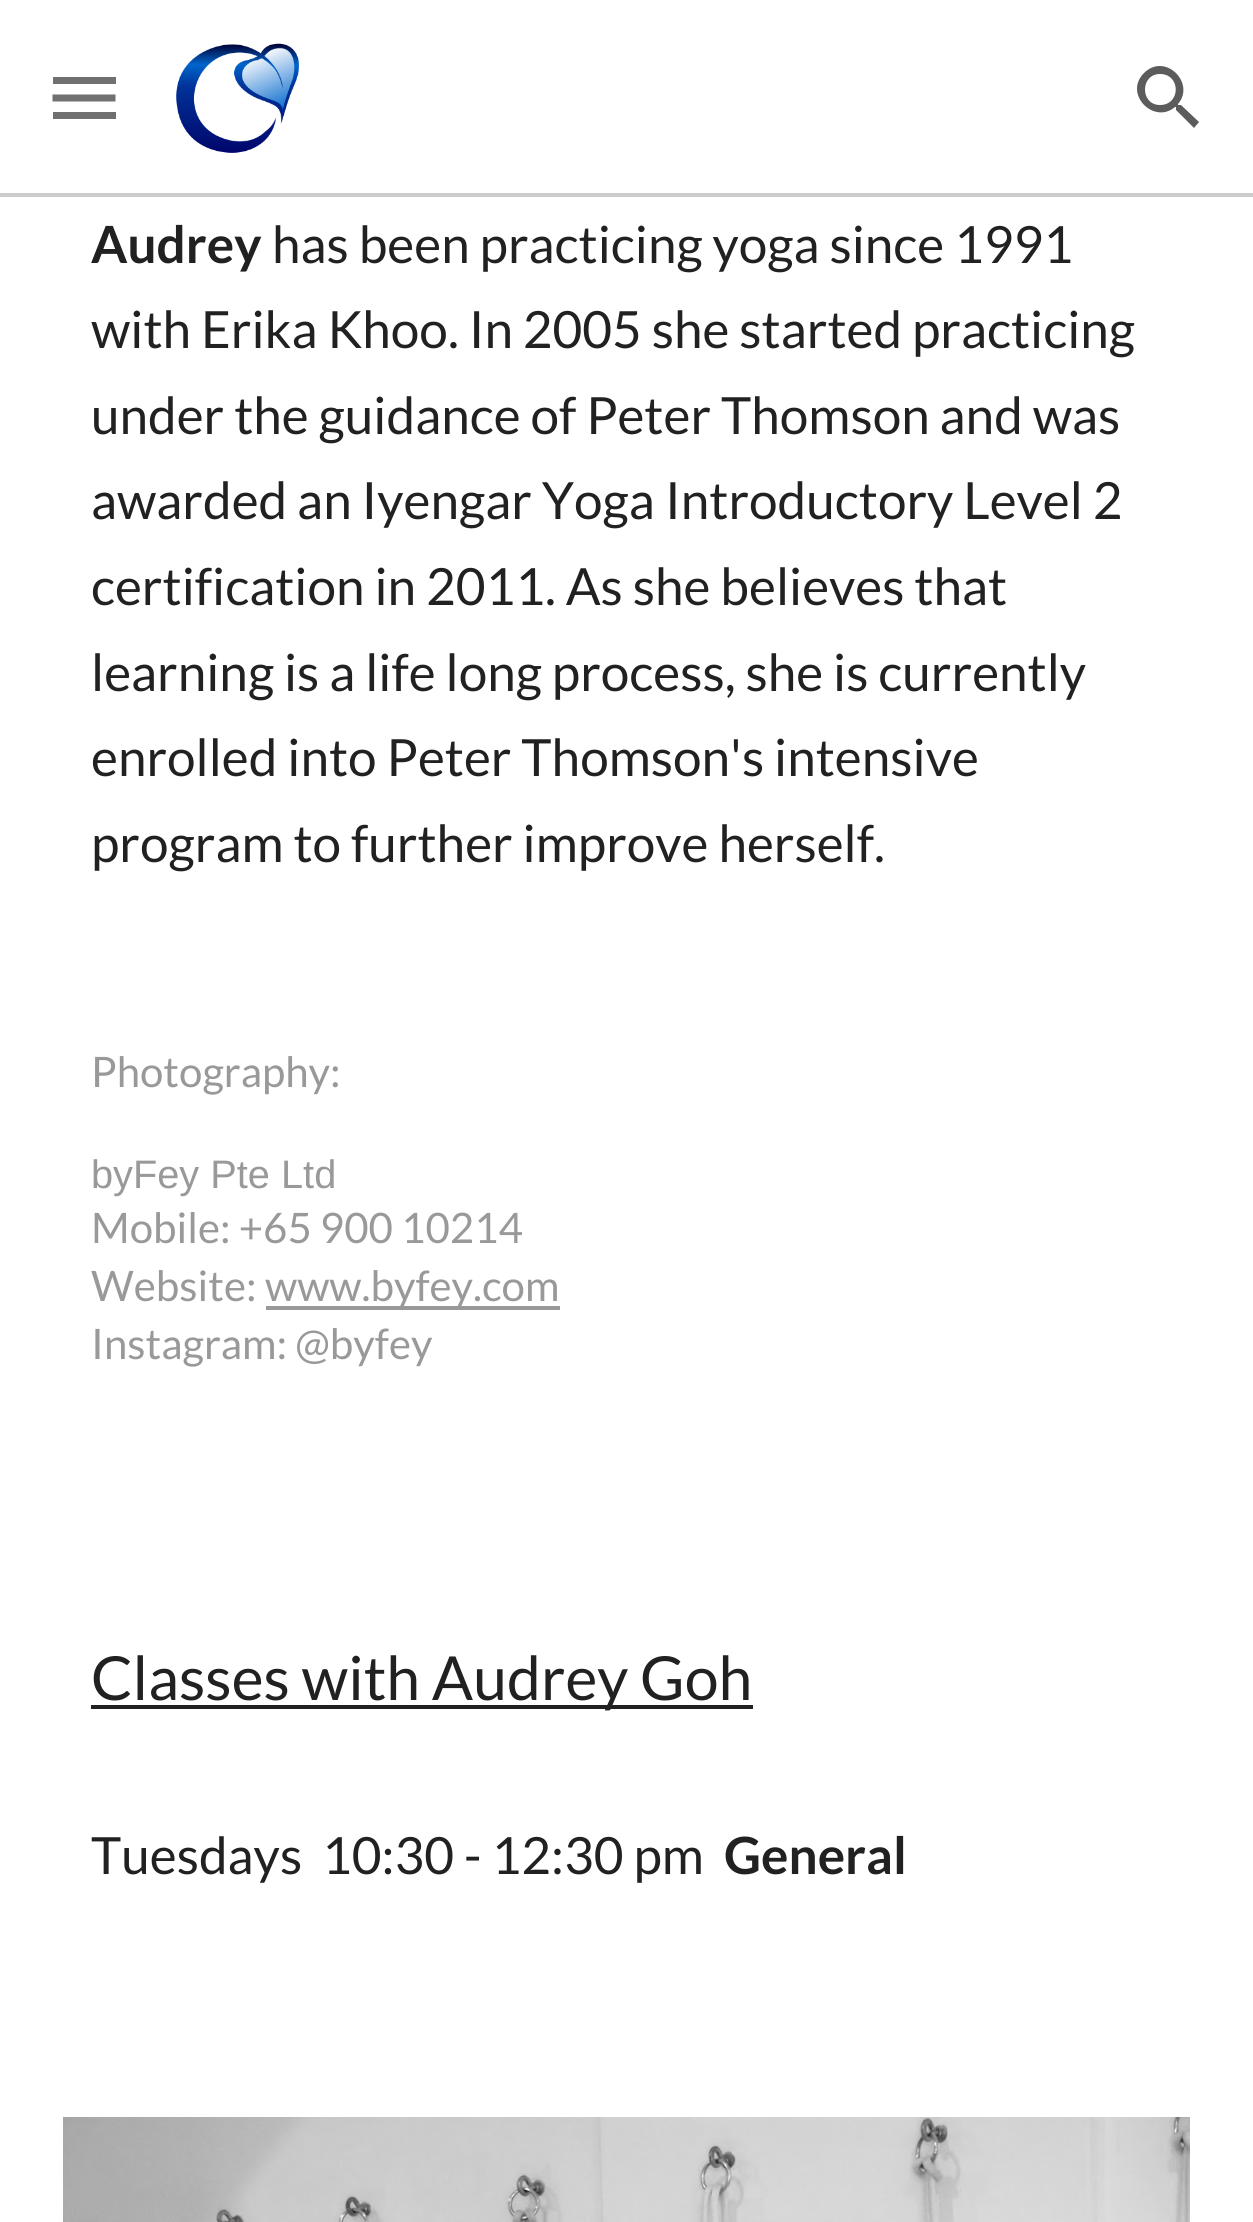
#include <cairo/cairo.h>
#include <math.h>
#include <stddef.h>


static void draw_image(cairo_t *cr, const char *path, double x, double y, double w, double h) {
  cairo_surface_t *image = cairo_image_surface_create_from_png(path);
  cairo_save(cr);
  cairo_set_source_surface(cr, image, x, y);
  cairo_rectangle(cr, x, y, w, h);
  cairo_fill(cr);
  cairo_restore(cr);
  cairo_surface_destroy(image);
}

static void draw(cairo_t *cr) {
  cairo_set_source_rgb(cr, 1, 1, 1);
  cairo_paint(cr);
  draw_image(cr, "images/1.png", 176, 43, 123, 110);
  cairo_set_source_rgb(cr, 92 / 255.0, 92 / 255.0, 92 / 255.0);
  cairo_new_path(cr);
  cairo_move_to(cr, 1181, 105);
  cairo_line_to(cr, 1178, 105);
  cairo_line_to(cr, 1178, 104);
  cairo_curve_to(cr, 1196, 83, 1165, 52, 1144, 73);
  cairo_curve_to(cr, 1123, 94, 1154, 125, 1175, 107);
  cairo_line_to(cr, 1176, 107);
  cairo_line_to(cr, 1176, 110);
  cairo_line_to(cr, 1194, 128);
  cairo_line_to(cr, 1199, 122);
  cairo_close_path(cr);
  cairo_move_to(cr, 1160, 105);
  cairo_curve_to(cr, 1140, 105, 1140, 74, 1160, 74);
  cairo_curve_to(cr, 1181, 74, 1181, 105, 1160, 105);
  cairo_close_path(cr);
  cairo_fill(cr);
  cairo_set_source_rgb(cr, 204 / 255.0, 204 / 255.0, 204 / 255.0);
  cairo_rectangle(cr, 0, 193, 1253, 4);
  cairo_fill(cr);
  cairo_set_source_rgb(cr, 112 / 255.0, 112 / 255.0, 112 / 255.0);
  cairo_rectangle(cr, 53, 77, 63, 7);
  cairo_fill(cr);
  cairo_new_path(cr);
  cairo_move_to(cr, 52.5, 98);
  cairo_line_to(cr, 115.5, 98);
  cairo_set_line_width(cr, 7);
  cairo_stroke(cr);
  cairo_rectangle(cr, 53, 112, 63, 7);
  cairo_fill(cr);
  cairo_set_source_rgb(cr, 153 / 255.0, 153 / 255.0, 153 / 255.0);
  cairo_rectangle(cr, 266, 1306, 294, 4);
  cairo_fill(cr);
  cairo_set_source_rgb(cr, 33 / 255.0, 33 / 255.0, 33 / 255.0);
  cairo_rectangle(cr, 91, 1705, 662, 4);
  cairo_fill(cr);
  draw_image(cr, "images/2.png", 63, 2117, 1127, 105);
  cairo_select_font_face(cr, "Lato", CAIRO_FONT_SLANT_NORMAL, CAIRO_FONT_WEIGHT_BOLD);
  cairo_set_font_size(cr, 51.3);
  cairo_move_to(cr, 91, 263);
  cairo_show_text(cr, "Audrey");
  cairo_select_font_face(cr, "Lato", CAIRO_FONT_SLANT_NORMAL, CAIRO_FONT_WEIGHT_NORMAL);
  cairo_move_to(cr, 272, 263);
  cairo_show_text(cr, "has been practicing yoga since 1991");
  cairo_move_to(cr, 91, 348);
  cairo_show_text(cr, "with Erika Khoo. In 2005 she started practicing");
  cairo_move_to(cr, 91, 434);
  cairo_show_text(cr, "under the guidance of Peter Thomson and was");
  cairo_move_to(cr, 91, 519);
  cairo_show_text(cr, "awarded an Iyengar Yoga");
  cairo_move_to(cr, 665, 519);
  cairo_show_text(cr, "Introductory Level 2");
  cairo_move_to(cr, 91, 605);
  cairo_show_text(cr, "certification in 2011. As she believes that");
  cairo_move_to(cr, 91, 691);
  cairo_show_text(cr, "learning is a life long process, she is currently");
  cairo_move_to(cr, 91, 776);
  cairo_show_text(cr, "enrolled into Peter Thomson's intensive");
  cairo_move_to(cr, 91, 862);
  cairo_show_text(cr, "program to further improve herself.");
  cairo_set_font_size(cr, 42);
  cairo_set_source_rgb(cr, 153 / 255.0, 153 / 255.0, 153 / 255.0);
  cairo_move_to(cr, 91, 1087);
  cairo_show_text(cr, "Photography:");
  cairo_select_font_face(cr, "Liberation Sans", CAIRO_FONT_SLANT_NORMAL, CAIRO_FONT_WEIGHT_NORMAL);
  cairo_set_font_size(cr, 39.75);
  cairo_move_to(cr, 91, 1188);
  cairo_show_text(cr, "byFey Pte Ltd");
  cairo_select_font_face(cr, "Lato", CAIRO_FONT_SLANT_NORMAL, CAIRO_FONT_WEIGHT_NORMAL);
  cairo_set_font_size(cr, 42);
  cairo_move_to(cr, 91, 1243);
  cairo_show_text(cr, "Mobile: +65 900 10214");
  cairo_move_to(cr, 91, 1301);
  cairo_show_text(cr, "Website:");
  cairo_move_to(cr, 265, 1301);
  cairo_show_text(cr, "www.byfey.com");
  cairo_move_to(cr, 91, 1359);
  cairo_show_text(cr, "Instagram: @byfey");
  cairo_set_font_size(cr, 60.75);
  cairo_set_source_rgb(cr, 33 / 255.0, 33 / 255.0, 33 / 255.0);
  cairo_move_to(cr, 91, 1700);
  cairo_show_text(cr, "Classes with Audrey Goh");
  cairo_set_font_size(cr, 51.3);
  cairo_move_to(cr, 91, 1874);
  cairo_show_text(cr, "Tuesdays");
  cairo_move_to(cr, 322, 1874);
  cairo_show_text(cr, "10:30 - 12:30 pm");
  cairo_select_font_face(cr, "Lato", CAIRO_FONT_SLANT_NORMAL, CAIRO_FONT_WEIGHT_BOLD);
  cairo_move_to(cr, 724, 1874);
  cairo_show_text(cr, "General");
}

int main(void) {
  cairo_surface_t *surface = cairo_image_surface_create(CAIRO_FORMAT_RGB24, 1253, 2222);
  cairo_t *cr = cairo_create(surface);
  cairo_font_options_t *options = cairo_font_options_create();
  cairo_font_options_set_hint_metrics(options, CAIRO_HINT_METRICS_OFF);
  cairo_font_options_set_hint_style(options, CAIRO_HINT_STYLE_NONE);
  cairo_set_font_options(cr, options);
  cairo_set_miter_limit(cr, 4);
  draw(cr);
  cairo_surface_write_to_png(surface, "out.png");
  cairo_font_options_destroy(options);
  cairo_destroy(cr);
  cairo_surface_destroy(surface);
  return 0;
}
